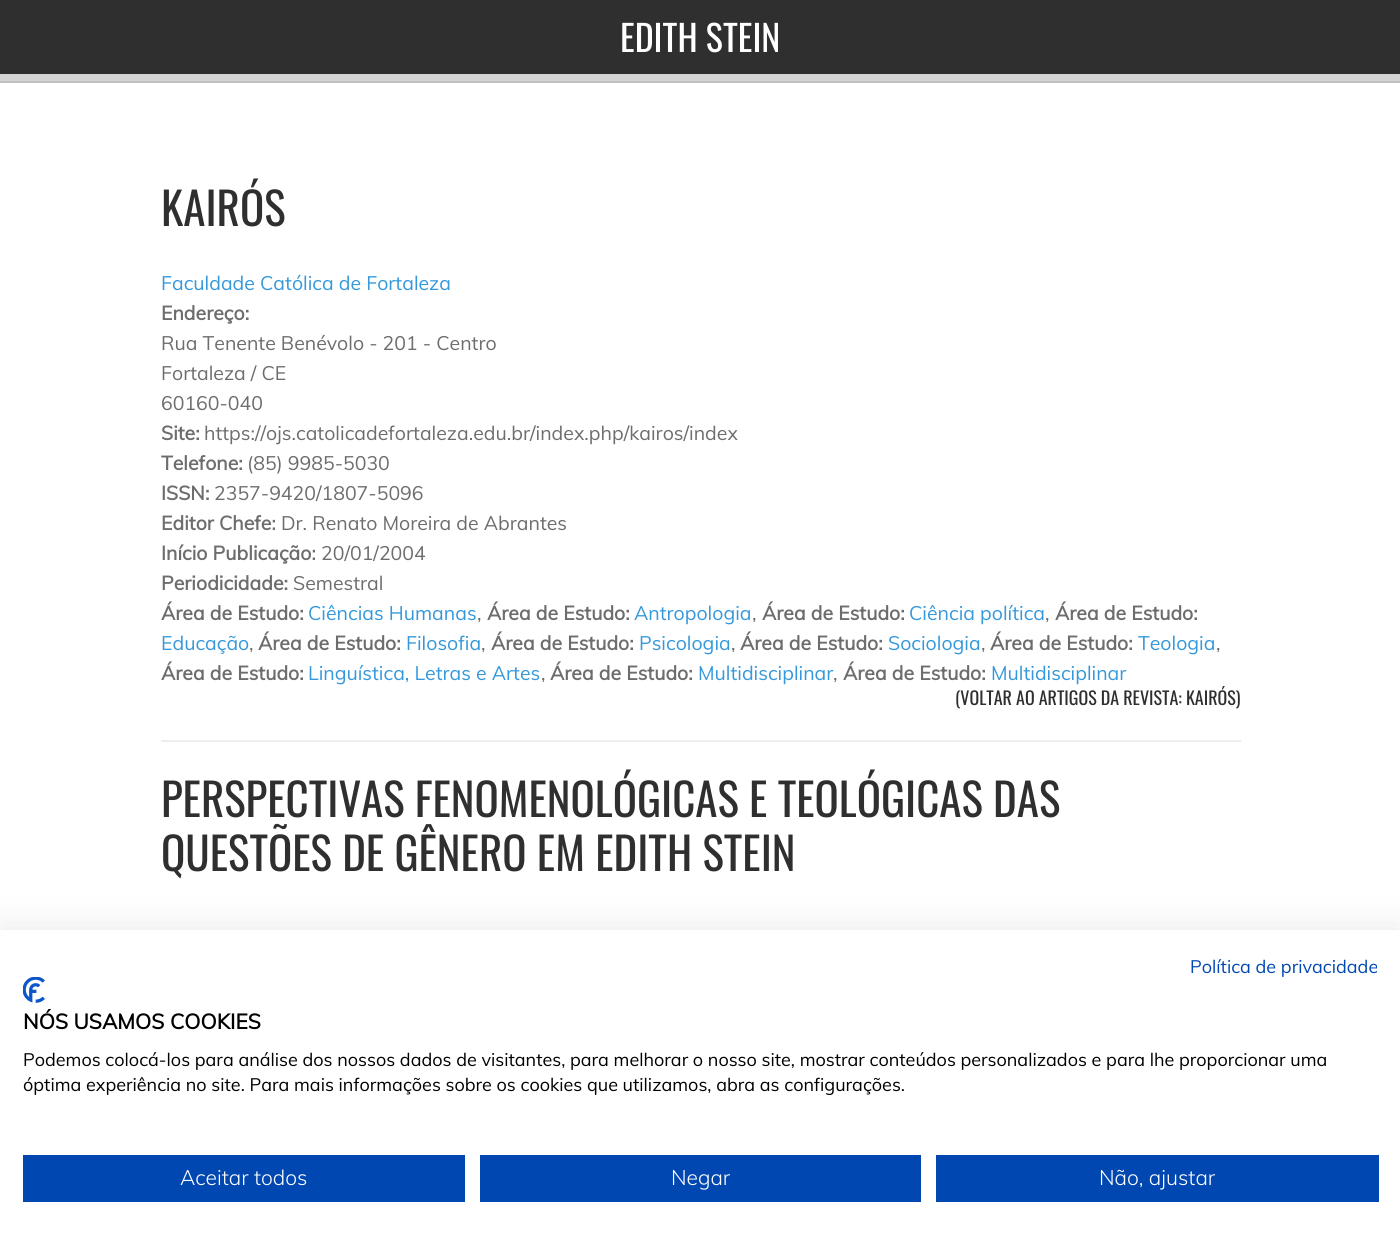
#include <cairo/cairo.h>
#include <math.h>
#include <stddef.h>


static void rounded_rect(cairo_t *cr, double x, double y, double w, double h, double r) {
  cairo_new_sub_path(cr);
  cairo_arc(cr, x + w - r, y + h - r, r, 0, M_PI / 2);
  cairo_arc(cr, x + r, y + h - r, r, M_PI / 2, M_PI);
  cairo_arc(cr, x + r, y + r, r, M_PI, 1.5 * M_PI);
  cairo_arc(cr, x + w - r, y + r, r, 1.5 * M_PI, 2 * M_PI);
  cairo_close_path(cr);
}

static void draw_shadow(cairo_t *cr, double x, double y, double w, double h, double r, double blur, double alpha) {
  cairo_push_group_with_content(cr, CAIRO_CONTENT_ALPHA);
  cairo_set_operator(cr, CAIRO_OPERATOR_SOURCE);
  for (int i = 15; i >= -15 && fmin(w, h) + blur * i / 3 > 0; i -= 2) {
    double e = blur * i / 6;
    cairo_set_source_rgba(cr, 0, 0, 0, alpha * erfc((i - 1) / 8.5) / 2);
    rounded_rect(cr, x - e, y - e, w + 2 * e, h + 2 * e, fmax(0, fmin(r + e + blur * .6, fmin(w, h) / 2 + e)));
    cairo_fill(cr);
  }
  cairo_pattern_t *soft = cairo_pop_group(cr);
  cairo_mask(cr, soft);
  cairo_pattern_destroy(soft);
}

static void draw_image(cairo_t *cr, const char *path, double x, double y, double w, double h) {
  cairo_surface_t *image = cairo_image_surface_create_from_png(path);
  cairo_save(cr);
  cairo_set_source_surface(cr, image, x, y);
  cairo_rectangle(cr, x, y, w, h);
  cairo_fill(cr);
  cairo_restore(cr);
  cairo_surface_destroy(image);
}

static void draw(cairo_t *cr) {
  cairo_set_source_rgb(cr, 1, 1, 1);
  cairo_paint(cr);
  cairo_set_source_rgb(cr, 47 / 255.0, 47 / 255.0, 47 / 255.0);
  cairo_rectangle(cr, 0, 0, 1400, 74);
  cairo_fill(cr);
  cairo_set_source_rgb(cr, 212 / 255.0, 212 / 255.0, 212 / 255.0);
  cairo_rectangle(cr, 0, 74, 1400, 7);
  cairo_fill(cr);
  cairo_set_source_rgb(cr, 191 / 255.0, 191 / 255.0, 191 / 255.0);
  cairo_rectangle(cr, 0, 81, 1400, 2);
  cairo_fill(cr);
  cairo_set_source_rgb(cr, 238 / 255.0, 238 / 255.0, 238 / 255.0);
  cairo_rectangle(cr, 161, 740, 1080, 2);
  cairo_fill(cr);
  cairo_set_source_rgb(cr, 0, 0, 0);
  draw_shadow(cr, 0, 930, 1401, 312, 0, 18, 0.1);
  cairo_set_source_rgb(cr, 1, 1, 1);
  cairo_rectangle(cr, 0, 930, 1400, 311);
  cairo_fill(cr);
  draw_image(cr, "images/1.png", 23, 977, 22, 26);
  cairo_set_source_rgb(cr, 0, 71 / 255.0, 178 / 255.0);
  cairo_rectangle(cr, 23, 1155, 442, 47);
  cairo_fill(cr);
  cairo_rectangle(cr, 480, 1155, 441, 47);
  cairo_fill(cr);
  cairo_rectangle(cr, 936, 1155, 443, 47);
  cairo_fill(cr);
  cairo_select_font_face(cr, "Oswald", CAIRO_FONT_SLANT_NORMAL, CAIRO_FONT_WEIGHT_NORMAL);
  cairo_set_font_size(cr, 36);
  cairo_set_source_rgb(cr, 1, 1, 1);
  cairo_move_to(cr, 620, 52);
  cairo_show_text(cr, "EDITH STEIN");
  cairo_set_font_size(cr, 45);
  cairo_set_source_rgb(cr, 47 / 255.0, 47 / 255.0, 47 / 255.0);
  cairo_move_to(cr, 161, 226);
  cairo_show_text(cr, "KAIRÓS");
  cairo_select_font_face(cr, "Muli", CAIRO_FONT_SLANT_NORMAL, CAIRO_FONT_WEIGHT_NORMAL);
  cairo_set_font_size(cr, 19.5);
  cairo_set_source_rgb(cr, 52 / 255.0, 152 / 255.0, 219 / 255.0);
  cairo_move_to(cr, 161, 290);
  cairo_show_text(cr, "Faculdade Católica de Fortaleza");
  cairo_select_font_face(cr, "Muli", CAIRO_FONT_SLANT_NORMAL, CAIRO_FONT_WEIGHT_BOLD);
  cairo_set_source_rgb(cr, 109 / 255.0, 109 / 255.0, 109 / 255.0);
  cairo_move_to(cr, 161, 320);
  cairo_show_text(cr, "Endereço:");
  cairo_select_font_face(cr, "Muli", CAIRO_FONT_SLANT_NORMAL, CAIRO_FONT_WEIGHT_NORMAL);
  cairo_move_to(cr, 161, 350);
  cairo_show_text(cr, "Rua Tenente Benévolo - 201 - Centro");
  cairo_move_to(cr, 161, 380);
  cairo_show_text(cr, "Fortaleza / CE");
  cairo_move_to(cr, 161, 410);
  cairo_show_text(cr, "60160-040");
  cairo_select_font_face(cr, "Muli", CAIRO_FONT_SLANT_NORMAL, CAIRO_FONT_WEIGHT_BOLD);
  cairo_move_to(cr, 161, 440);
  cairo_show_text(cr, "Site:");
  cairo_select_font_face(cr, "Muli", CAIRO_FONT_SLANT_NORMAL, CAIRO_FONT_WEIGHT_NORMAL);
  cairo_move_to(cr, 204, 440);
  cairo_show_text(cr, "https://ojs.catolicadefortaleza.edu.br/index.php/kairos/index");
  cairo_select_font_face(cr, "Muli", CAIRO_FONT_SLANT_NORMAL, CAIRO_FONT_WEIGHT_BOLD);
  cairo_move_to(cr, 161, 470);
  cairo_show_text(cr, "Telefone:");
  cairo_select_font_face(cr, "Muli", CAIRO_FONT_SLANT_NORMAL, CAIRO_FONT_WEIGHT_NORMAL);
  cairo_move_to(cr, 247, 470);
  cairo_show_text(cr, "(85) 9985-5030");
  cairo_select_font_face(cr, "Muli", CAIRO_FONT_SLANT_NORMAL, CAIRO_FONT_WEIGHT_BOLD);
  cairo_move_to(cr, 161, 500);
  cairo_show_text(cr, "ISSN:");
  cairo_select_font_face(cr, "Muli", CAIRO_FONT_SLANT_NORMAL, CAIRO_FONT_WEIGHT_NORMAL);
  cairo_move_to(cr, 214, 500);
  cairo_show_text(cr, "2357-9420/1807-5096");
  cairo_select_font_face(cr, "Muli", CAIRO_FONT_SLANT_NORMAL, CAIRO_FONT_WEIGHT_BOLD);
  cairo_move_to(cr, 161, 530);
  cairo_show_text(cr, "Editor Chefe:");
  cairo_select_font_face(cr, "Muli", CAIRO_FONT_SLANT_NORMAL, CAIRO_FONT_WEIGHT_NORMAL);
  cairo_move_to(cr, 281, 530);
  cairo_show_text(cr, "Dr. Renato Moreira de Abrantes");
  cairo_select_font_face(cr, "Muli", CAIRO_FONT_SLANT_NORMAL, CAIRO_FONT_WEIGHT_BOLD);
  cairo_move_to(cr, 161, 560);
  cairo_show_text(cr, "Início Publicação:");
  cairo_select_font_face(cr, "Muli", CAIRO_FONT_SLANT_NORMAL, CAIRO_FONT_WEIGHT_NORMAL);
  cairo_move_to(cr, 321, 560);
  cairo_show_text(cr, "20/01/2004");
  cairo_select_font_face(cr, "Muli", CAIRO_FONT_SLANT_NORMAL, CAIRO_FONT_WEIGHT_BOLD);
  cairo_move_to(cr, 161, 590);
  cairo_show_text(cr, "Periodicidade:");
  cairo_select_font_face(cr, "Muli", CAIRO_FONT_SLANT_NORMAL, CAIRO_FONT_WEIGHT_NORMAL);
  cairo_move_to(cr, 293, 590);
  cairo_show_text(cr, "Semestral");
  cairo_select_font_face(cr, "Muli", CAIRO_FONT_SLANT_NORMAL, CAIRO_FONT_WEIGHT_BOLD);
  cairo_move_to(cr, 161, 620);
  cairo_show_text(cr, "Área de Estudo:");
  cairo_select_font_face(cr, "Muli", CAIRO_FONT_SLANT_NORMAL, CAIRO_FONT_WEIGHT_NORMAL);
  cairo_set_source_rgb(cr, 52 / 255.0, 152 / 255.0, 219 / 255.0);
  cairo_move_to(cr, 308, 620);
  cairo_show_text(cr, "Ciências Humanas");
  cairo_set_source_rgb(cr, 109 / 255.0, 109 / 255.0, 109 / 255.0);
  cairo_move_to(cr, 477, 620);
  cairo_show_text(cr, ",");
  cairo_select_font_face(cr, "Muli", CAIRO_FONT_SLANT_NORMAL, CAIRO_FONT_WEIGHT_BOLD);
  cairo_move_to(cr, 487, 620);
  cairo_show_text(cr, "Área de Estudo:");
  cairo_select_font_face(cr, "Muli", CAIRO_FONT_SLANT_NORMAL, CAIRO_FONT_WEIGHT_NORMAL);
  cairo_set_source_rgb(cr, 52 / 255.0, 152 / 255.0, 219 / 255.0);
  cairo_move_to(cr, 634, 620);
  cairo_show_text(cr, "Antropologia");
  cairo_set_source_rgb(cr, 109 / 255.0, 109 / 255.0, 109 / 255.0);
  cairo_move_to(cr, 752, 620);
  cairo_show_text(cr, ",");
  cairo_select_font_face(cr, "Muli", CAIRO_FONT_SLANT_NORMAL, CAIRO_FONT_WEIGHT_BOLD);
  cairo_move_to(cr, 762, 620);
  cairo_show_text(cr, "Área de Estudo:");
  cairo_select_font_face(cr, "Muli", CAIRO_FONT_SLANT_NORMAL, CAIRO_FONT_WEIGHT_NORMAL);
  cairo_set_source_rgb(cr, 52 / 255.0, 152 / 255.0, 219 / 255.0);
  cairo_move_to(cr, 909, 620);
  cairo_show_text(cr, "Ciência política");
  cairo_set_source_rgb(cr, 109 / 255.0, 109 / 255.0, 109 / 255.0);
  cairo_move_to(cr, 1045, 620);
  cairo_show_text(cr, ",");
  cairo_select_font_face(cr, "Muli", CAIRO_FONT_SLANT_NORMAL, CAIRO_FONT_WEIGHT_BOLD);
  cairo_move_to(cr, 1055, 620);
  cairo_show_text(cr, "Área de Estudo:");
  cairo_select_font_face(cr, "Muli", CAIRO_FONT_SLANT_NORMAL, CAIRO_FONT_WEIGHT_NORMAL);
  cairo_set_source_rgb(cr, 52 / 255.0, 152 / 255.0, 219 / 255.0);
  cairo_move_to(cr, 161, 650);
  cairo_show_text(cr, "Educação");
  cairo_set_source_rgb(cr, 109 / 255.0, 109 / 255.0, 109 / 255.0);
  cairo_move_to(cr, 249, 650);
  cairo_show_text(cr, ",");
  cairo_select_font_face(cr, "Muli", CAIRO_FONT_SLANT_NORMAL, CAIRO_FONT_WEIGHT_BOLD);
  cairo_move_to(cr, 258, 650);
  cairo_show_text(cr, "Área de Estudo:");
  cairo_select_font_face(cr, "Muli", CAIRO_FONT_SLANT_NORMAL, CAIRO_FONT_WEIGHT_NORMAL);
  cairo_set_source_rgb(cr, 52 / 255.0, 152 / 255.0, 219 / 255.0);
  cairo_move_to(cr, 406, 650);
  cairo_show_text(cr, "Filosofia");
  cairo_set_source_rgb(cr, 109 / 255.0, 109 / 255.0, 109 / 255.0);
  cairo_move_to(cr, 481, 650);
  cairo_show_text(cr, ",");
  cairo_select_font_face(cr, "Muli", CAIRO_FONT_SLANT_NORMAL, CAIRO_FONT_WEIGHT_BOLD);
  cairo_move_to(cr, 491, 650);
  cairo_show_text(cr, "Área de Estudo:");
  cairo_select_font_face(cr, "Muli", CAIRO_FONT_SLANT_NORMAL, CAIRO_FONT_WEIGHT_NORMAL);
  cairo_set_source_rgb(cr, 52 / 255.0, 152 / 255.0, 219 / 255.0);
  cairo_move_to(cr, 639, 650);
  cairo_show_text(cr, "Psicologia");
  cairo_set_source_rgb(cr, 109 / 255.0, 109 / 255.0, 109 / 255.0);
  cairo_move_to(cr, 731, 650);
  cairo_show_text(cr, ",");
  cairo_select_font_face(cr, "Muli", CAIRO_FONT_SLANT_NORMAL, CAIRO_FONT_WEIGHT_BOLD);
  cairo_move_to(cr, 740, 650);
  cairo_show_text(cr, "Área de Estudo:");
  cairo_select_font_face(cr, "Muli", CAIRO_FONT_SLANT_NORMAL, CAIRO_FONT_WEIGHT_NORMAL);
  cairo_set_source_rgb(cr, 52 / 255.0, 152 / 255.0, 219 / 255.0);
  cairo_move_to(cr, 888, 650);
  cairo_show_text(cr, "Sociologia");
  cairo_set_source_rgb(cr, 109 / 255.0, 109 / 255.0, 109 / 255.0);
  cairo_move_to(cr, 981, 650);
  cairo_show_text(cr, ",");
  cairo_select_font_face(cr, "Muli", CAIRO_FONT_SLANT_NORMAL, CAIRO_FONT_WEIGHT_BOLD);
  cairo_move_to(cr, 990, 650);
  cairo_show_text(cr, "Área de Estudo:");
  cairo_select_font_face(cr, "Muli", CAIRO_FONT_SLANT_NORMAL, CAIRO_FONT_WEIGHT_NORMAL);
  cairo_set_source_rgb(cr, 52 / 255.0, 152 / 255.0, 219 / 255.0);
  cairo_move_to(cr, 1138, 650);
  cairo_show_text(cr, "Teologia");
  cairo_set_source_rgb(cr, 109 / 255.0, 109 / 255.0, 109 / 255.0);
  cairo_move_to(cr, 1216, 650);
  cairo_show_text(cr, ",");
  cairo_select_font_face(cr, "Muli", CAIRO_FONT_SLANT_NORMAL, CAIRO_FONT_WEIGHT_BOLD);
  cairo_move_to(cr, 161, 680);
  cairo_show_text(cr, "Área de Estudo:");
  cairo_select_font_face(cr, "Muli", CAIRO_FONT_SLANT_NORMAL, CAIRO_FONT_WEIGHT_NORMAL);
  cairo_set_source_rgb(cr, 52 / 255.0, 152 / 255.0, 219 / 255.0);
  cairo_move_to(cr, 308, 680);
  cairo_show_text(cr, "Linguística, Letras e Artes");
  cairo_set_source_rgb(cr, 109 / 255.0, 109 / 255.0, 109 / 255.0);
  cairo_move_to(cr, 541, 680);
  cairo_show_text(cr, ",");
  cairo_select_font_face(cr, "Muli", CAIRO_FONT_SLANT_NORMAL, CAIRO_FONT_WEIGHT_BOLD);
  cairo_move_to(cr, 550, 680);
  cairo_show_text(cr, "Área de Estudo:");
  cairo_select_font_face(cr, "Muli", CAIRO_FONT_SLANT_NORMAL, CAIRO_FONT_WEIGHT_NORMAL);
  cairo_set_source_rgb(cr, 52 / 255.0, 152 / 255.0, 219 / 255.0);
  cairo_move_to(cr, 698, 680);
  cairo_show_text(cr, "Multidisciplinar");
  cairo_set_source_rgb(cr, 109 / 255.0, 109 / 255.0, 109 / 255.0);
  cairo_move_to(cr, 833, 680);
  cairo_show_text(cr, ",");
  cairo_select_font_face(cr, "Muli", CAIRO_FONT_SLANT_NORMAL, CAIRO_FONT_WEIGHT_BOLD);
  cairo_move_to(cr, 843, 680);
  cairo_show_text(cr, "Área de Estudo:");
  cairo_select_font_face(cr, "Muli", CAIRO_FONT_SLANT_NORMAL, CAIRO_FONT_WEIGHT_NORMAL);
  cairo_set_source_rgb(cr, 52 / 255.0, 152 / 255.0, 219 / 255.0);
  cairo_move_to(cr, 991, 680);
  cairo_show_text(cr, "Multidisciplinar");
  cairo_select_font_face(cr, "Oswald", CAIRO_FONT_SLANT_NORMAL, CAIRO_FONT_WEIGHT_NORMAL);
  cairo_set_font_size(cr, 18);
  cairo_set_source_rgb(cr, 47 / 255.0, 47 / 255.0, 47 / 255.0);
  cairo_move_to(cr, 955, 705);
  cairo_show_text(cr, "(VOLTAR AO ARTIGOS DA REVISTA: KAIRÓS)");
  cairo_set_font_size(cr, 45);
  cairo_move_to(cr, 161, 817);
  cairo_show_text(cr, "PERSPECTIVAS FENOMENOLÓGICAS E TEOLÓGICAS DAS");
  cairo_move_to(cr, 161, 871);
  cairo_show_text(cr, "QUESTÕES DE GÊNERO EM EDITH STEIN");
  cairo_select_font_face(cr, "Muli", CAIRO_FONT_SLANT_NORMAL, CAIRO_FONT_WEIGHT_NORMAL);
  cairo_set_font_size(cr, 18);
  cairo_set_source_rgb(cr, 0, 71 / 255.0, 178 / 255.0);
  cairo_move_to(cr, 1190, 973);
  cairo_show_text(cr, "Política de privacidade");
  cairo_select_font_face(cr, "Muli", CAIRO_FONT_SLANT_NORMAL, CAIRO_FONT_WEIGHT_BOLD);
  cairo_set_font_size(cr, 21);
  cairo_set_source_rgb(cr, 0, 0, 0);
  cairo_move_to(cr, 23, 1029);
  cairo_show_text(cr, "NÓS USAMOS COOKIES");
  cairo_select_font_face(cr, "Muli", CAIRO_FONT_SLANT_NORMAL, CAIRO_FONT_WEIGHT_NORMAL);
  cairo_set_font_size(cr, 18);
  cairo_move_to(cr, 23, 1066);
  cairo_show_text(cr, "Podemos colocá-los para análise dos nossos dados de visitantes, para melhorar o nosso site, mostrar conteúdos personalizados e para lhe proporcionar uma");
  cairo_move_to(cr, 23, 1091);
  cairo_show_text(cr, "óptima experiência no site. Para mais informações sobre os cookies que utilizamos, abra as configurações.");
  cairo_select_font_face(cr, "Muli Light", CAIRO_FONT_SLANT_NORMAL, CAIRO_FONT_WEIGHT_NORMAL);
  cairo_set_font_size(cr, 21);
  cairo_set_source_rgb(cr, 1, 1, 1);
  cairo_move_to(cr, 180, 1185);
  cairo_show_text(cr, "Aceitar todos");
  cairo_move_to(cr, 671, 1185);
  cairo_show_text(cr, "Negar");
  cairo_move_to(cr, 1099, 1185);
  cairo_show_text(cr, "Não, ajustar");
}

int main(void) {
  cairo_surface_t *surface = cairo_image_surface_create(CAIRO_FORMAT_RGB24, 1400, 1241);
  cairo_t *cr = cairo_create(surface);
  cairo_font_options_t *options = cairo_font_options_create();
  cairo_font_options_set_hint_metrics(options, CAIRO_HINT_METRICS_OFF);
  cairo_font_options_set_hint_style(options, CAIRO_HINT_STYLE_NONE);
  cairo_set_font_options(cr, options);
  cairo_set_miter_limit(cr, 4);
  draw(cr);
  cairo_surface_write_to_png(surface, "out.png");
  cairo_font_options_destroy(options);
  cairo_destroy(cr);
  cairo_surface_destroy(surface);
  return 0;
}
